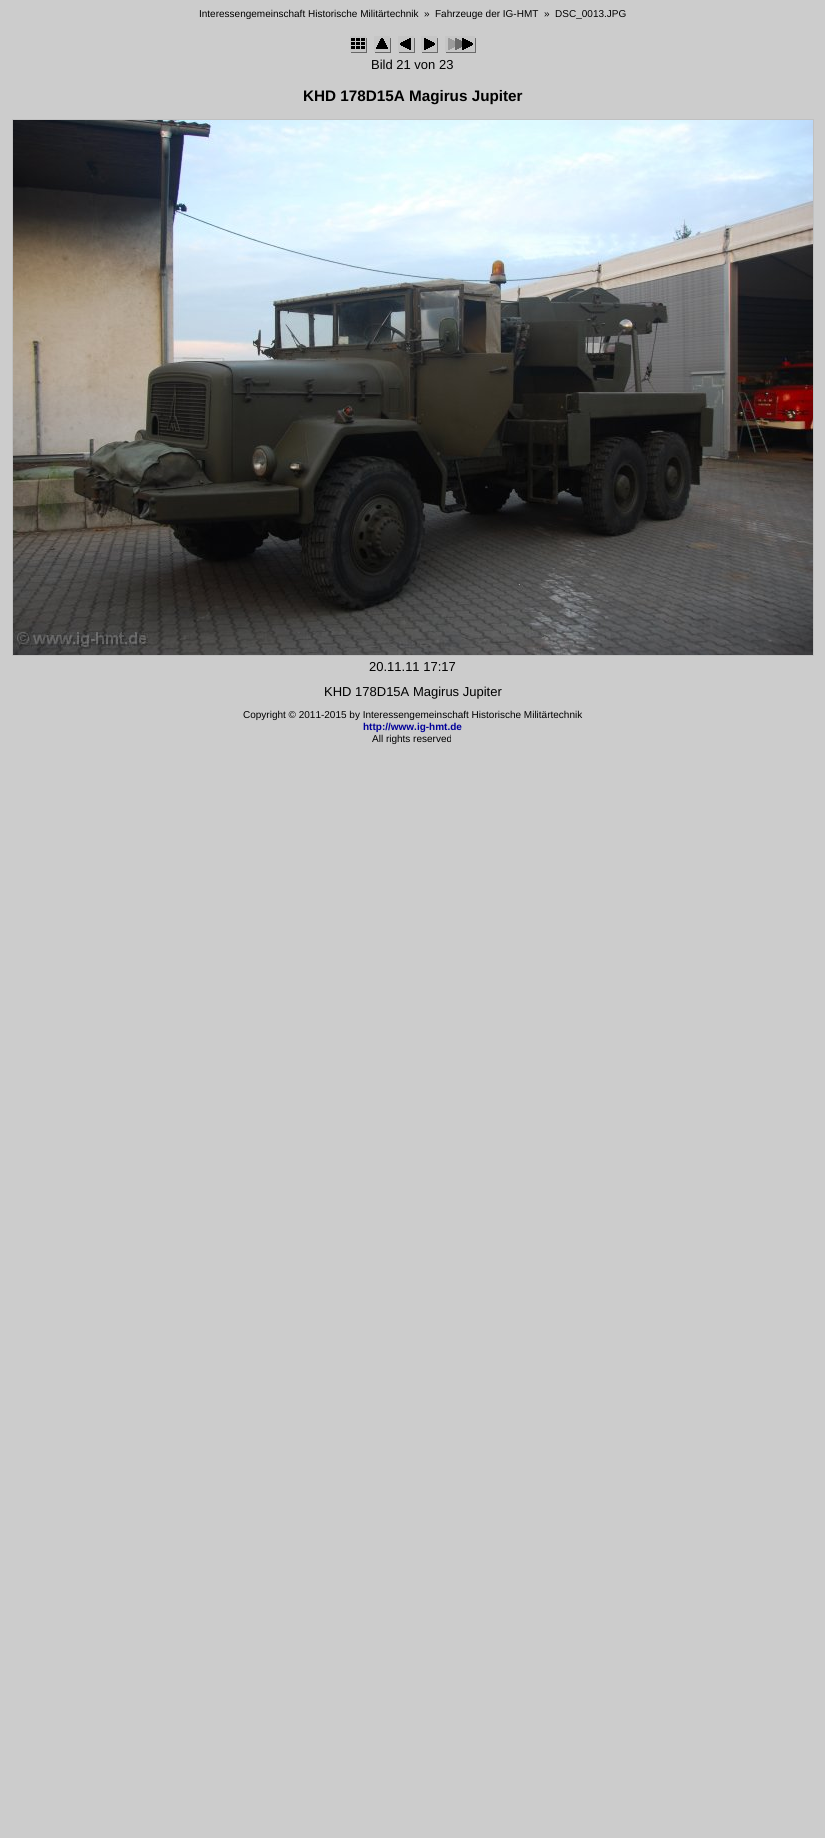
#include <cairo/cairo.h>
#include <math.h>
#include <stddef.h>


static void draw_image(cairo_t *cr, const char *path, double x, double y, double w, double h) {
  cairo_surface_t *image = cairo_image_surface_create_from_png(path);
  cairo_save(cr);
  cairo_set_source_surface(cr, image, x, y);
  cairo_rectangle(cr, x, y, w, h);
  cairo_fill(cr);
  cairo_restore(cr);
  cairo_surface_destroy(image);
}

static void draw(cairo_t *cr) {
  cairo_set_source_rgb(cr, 204 / 255.0, 204 / 255.0, 204 / 255.0);
  cairo_paint(cr);
  draw_image(cr, "images/1.png", 350, 36, 17, 17);
  draw_image(cr, "images/2.png", 374, 36, 17, 17);
  draw_image(cr, "images/3.png", 398, 36, 17, 17);
  draw_image(cr, "images/4.png", 421, 36, 17, 17);
  draw_image(cr, "images/5.png", 445, 36, 31, 17);
  cairo_rectangle(cr, 12.5, 119.5, 801, 536);
  cairo_set_source_rgb(cr, 192 / 255.0, 192 / 255.0, 192 / 255.0);
  cairo_set_line_width(cr, 1);
  cairo_stroke(cr);
  draw_image(cr, "images/6.png", 13, 120, 800, 535);
  cairo_select_font_face(cr, "Liberation Sans", CAIRO_FONT_SLANT_NORMAL, CAIRO_FONT_WEIGHT_NORMAL);
  cairo_set_font_size(cr, 10);
  cairo_set_source_rgb(cr, 0, 0, 0);
  cairo_move_to(cr, 199, 17);
  cairo_show_text(cr, "Interessengemeinschaft Historische Militärtechnik");
  cairo_move_to(cr, 424, 17);
  cairo_show_text(cr, "»");
  cairo_move_to(cr, 435, 17);
  cairo_show_text(cr, "Fahrzeuge der IG-HMT");
  cairo_move_to(cr, 544, 17);
  cairo_show_text(cr, "»  DSC_0013.JPG");
  cairo_set_font_size(cr, 13);
  cairo_move_to(cr, 371, 69);
  cairo_show_text(cr, "Bild 21 von 23");
  cairo_select_font_face(cr, "Liberation Sans", CAIRO_FONT_SLANT_NORMAL, CAIRO_FONT_WEIGHT_BOLD);
  cairo_set_font_size(cr, 15.25);
  cairo_move_to(cr, 303, 101);
  cairo_show_text(cr, "KHD 178D15A Magirus Jupiter");
  cairo_select_font_face(cr, "Liberation Sans", CAIRO_FONT_SLANT_NORMAL, CAIRO_FONT_WEIGHT_NORMAL);
  cairo_set_font_size(cr, 13);
  cairo_move_to(cr, 369, 671);
  cairo_show_text(cr, "20.11.11 17:17");
  cairo_move_to(cr, 324, 696);
  cairo_show_text(cr, "KHD 178D15A Magirus Jupiter");
  cairo_set_font_size(cr, 10);
  cairo_move_to(cr, 243, 718);
  cairo_show_text(cr, "Copyright © 2011-2015 by Interessengemeinschaft Historische Militärtechnik");
  cairo_select_font_face(cr, "Liberation Sans", CAIRO_FONT_SLANT_NORMAL, CAIRO_FONT_WEIGHT_BOLD);
  cairo_set_source_rgb(cr, 0, 0, 153 / 255.0);
  cairo_move_to(cr, 363, 730);
  cairo_show_text(cr, "http://www.ig-hmt.de");
  cairo_select_font_face(cr, "Liberation Sans", CAIRO_FONT_SLANT_NORMAL, CAIRO_FONT_WEIGHT_NORMAL);
  cairo_set_source_rgb(cr, 0, 0, 0);
  cairo_move_to(cr, 372, 742);
  cairo_show_text(cr, "All rights reserved");
}

int main(void) {
  cairo_surface_t *surface = cairo_image_surface_create(CAIRO_FORMAT_RGB24, 825, 1838);
  cairo_t *cr = cairo_create(surface);
  cairo_font_options_t *options = cairo_font_options_create();
  cairo_font_options_set_hint_metrics(options, CAIRO_HINT_METRICS_OFF);
  cairo_font_options_set_hint_style(options, CAIRO_HINT_STYLE_NONE);
  cairo_set_font_options(cr, options);
  cairo_set_miter_limit(cr, 4);
  draw(cr);
  cairo_surface_write_to_png(surface, "out.png");
  cairo_font_options_destroy(options);
  cairo_destroy(cr);
  cairo_surface_destroy(surface);
  return 0;
}
